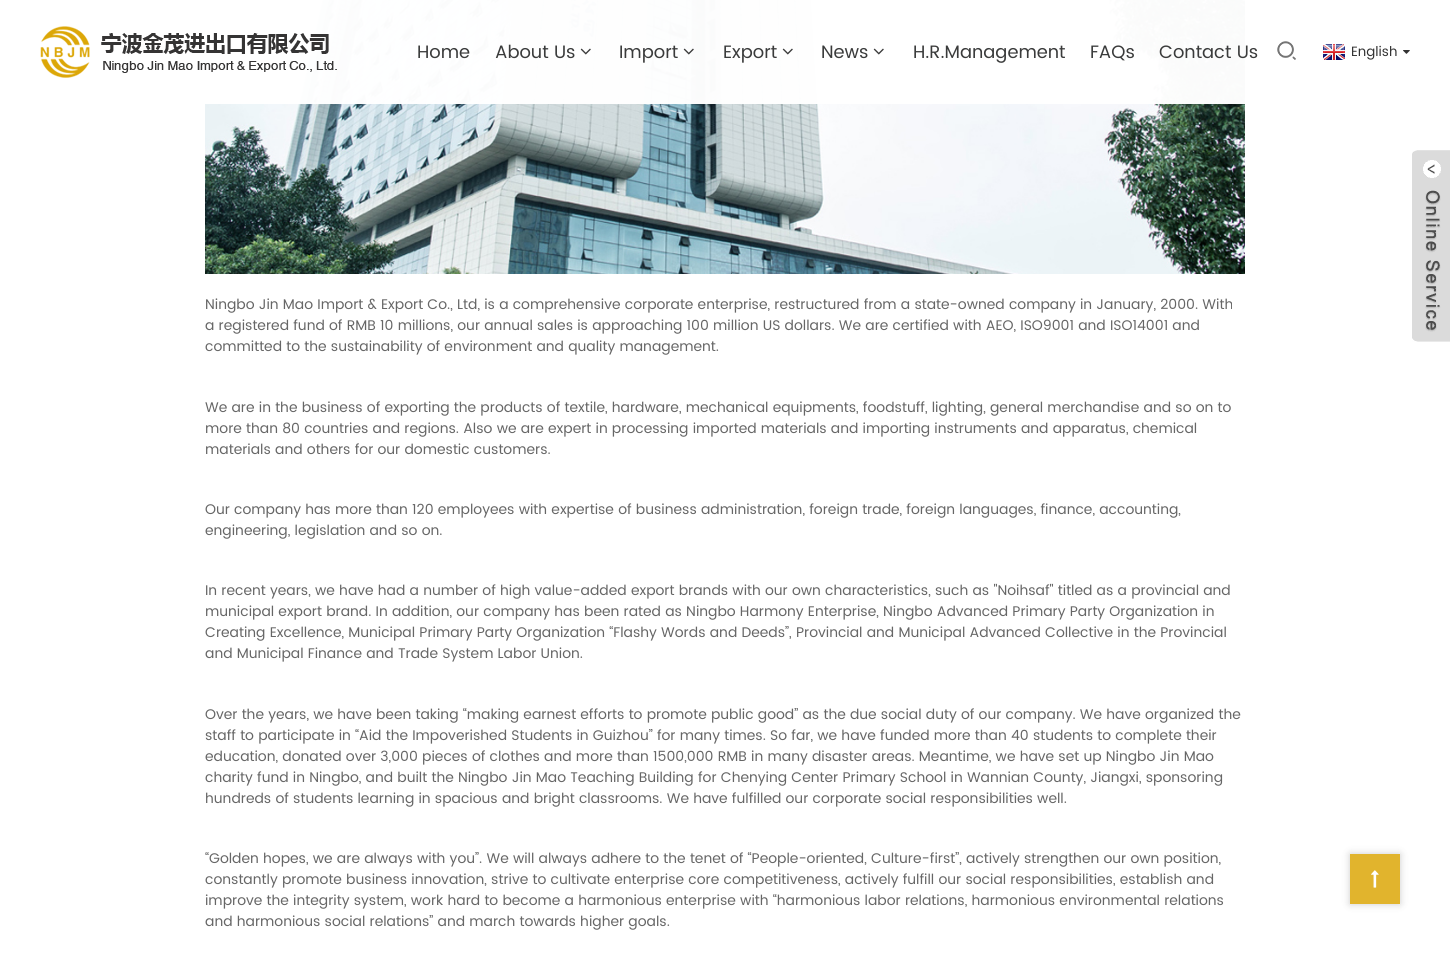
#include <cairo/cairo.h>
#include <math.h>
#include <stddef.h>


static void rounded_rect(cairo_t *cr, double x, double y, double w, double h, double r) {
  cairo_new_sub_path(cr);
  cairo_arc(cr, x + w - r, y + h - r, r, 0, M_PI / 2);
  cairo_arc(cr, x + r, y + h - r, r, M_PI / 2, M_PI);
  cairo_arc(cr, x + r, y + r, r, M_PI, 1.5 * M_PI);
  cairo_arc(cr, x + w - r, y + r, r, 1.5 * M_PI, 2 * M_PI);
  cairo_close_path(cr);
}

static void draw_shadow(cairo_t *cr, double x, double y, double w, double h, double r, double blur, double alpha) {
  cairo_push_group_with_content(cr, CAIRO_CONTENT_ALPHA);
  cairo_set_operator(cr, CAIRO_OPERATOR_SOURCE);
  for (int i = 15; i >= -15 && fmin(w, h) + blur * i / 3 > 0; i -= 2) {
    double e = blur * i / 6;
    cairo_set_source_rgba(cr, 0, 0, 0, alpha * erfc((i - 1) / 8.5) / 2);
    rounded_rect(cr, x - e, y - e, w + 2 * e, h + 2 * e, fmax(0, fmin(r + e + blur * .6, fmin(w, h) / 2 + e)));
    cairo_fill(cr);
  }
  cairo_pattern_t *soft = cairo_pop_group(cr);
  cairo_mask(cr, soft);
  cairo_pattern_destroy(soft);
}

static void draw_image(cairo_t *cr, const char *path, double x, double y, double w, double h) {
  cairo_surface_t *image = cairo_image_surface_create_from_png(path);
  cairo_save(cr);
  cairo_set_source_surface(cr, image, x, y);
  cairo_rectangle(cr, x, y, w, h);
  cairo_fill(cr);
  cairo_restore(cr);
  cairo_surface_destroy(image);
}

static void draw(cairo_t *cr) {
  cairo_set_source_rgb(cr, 1, 1, 1);
  cairo_paint(cr);
  draw_image(cr, "images/9.png", 205, 0, 1040, 274);
  cairo_set_source_rgba(cr, 1, 1, 1, 0.98);
  cairo_rectangle(cr, 205, 0, 1040, 104);
  cairo_fill(cr);
  draw_image(cr, "images/1.png", 40, 26, 297, 52);
  draw_image(cr, "images/2.png", 580, 48, 11, 7);
  draw_image(cr, "images/3.png", 683, 48, 11, 7);
  draw_image(cr, "images/4.png", 782, 48, 11, 7);
  draw_image(cr, "images/5.png", 873, 48, 11, 7);
  draw_image(cr, "images/6.png", 1277, 41, 19, 19);
  draw_image(cr, "images/7.png", 1323, 44, 22, 16);
  draw_image(cr, "images/8.png", 1403, 50, 7, 4);
  draw_image(cr, "images/10.png", 1412, 150, 38, 192);
  cairo_set_source_rgb(cr, 0, 0, 0);
  draw_shadow(cr, 1350, 854, 50, 50, 0, 4, 0.2);
  cairo_set_source_rgb(cr, 225 / 255.0, 180 / 255.0, 45 / 255.0);
  cairo_rectangle(cr, 1350, 854, 50, 50);
  cairo_fill(cr);
  draw_image(cr, "images/11.png", 1371, 870, 8, 18);
  cairo_select_font_face(cr, "Poppins", CAIRO_FONT_SLANT_NORMAL, CAIRO_FONT_WEIGHT_NORMAL);
  cairo_set_font_size(cr, 18);
  cairo_set_source_rgb(cr, 58 / 255.0, 59 / 255.0, 59 / 255.0);
  cairo_move_to(cr, 417, 58);
  cairo_show_text(cr, "Home");
  cairo_move_to(cr, 495, 58);
  cairo_show_text(cr, "About Us");
  cairo_move_to(cr, 619, 58);
  cairo_show_text(cr, "Import");
  cairo_move_to(cr, 723, 58);
  cairo_show_text(cr, "Export");
  cairo_move_to(cr, 821, 58);
  cairo_show_text(cr, "News");
  cairo_move_to(cr, 913, 58);
  cairo_show_text(cr, "H.R.Management");
  cairo_move_to(cr, 1090, 58);
  cairo_show_text(cr, "FAQs");
  cairo_move_to(cr, 1159, 58);
  cairo_show_text(cr, "Contact Us");
  cairo_set_font_size(cr, 13.5);
  cairo_set_source_rgb(cr, 51 / 255.0, 51 / 255.0, 51 / 255.0);
  cairo_move_to(cr, 1351, 56);
  cairo_show_text(cr, "English");
  cairo_set_font_size(cr, 14);
  cairo_set_source_rgb(cr, 102 / 255.0, 102 / 255.0, 102 / 255.0);
  cairo_move_to(cr, 205, 309);
  cairo_show_text(cr, "Ningbo Jin Mao Import & Export Co., Ltd, is a comprehensive corporate enterprise, restructured from a state-owned company in January, 2000. With");
  cairo_move_to(cr, 205, 330);
  cairo_show_text(cr, "a registered fund of RMB 10 millions, our annual sales is approaching 100 million US dollars. We are certified with AEO, ISO9001 and ISO14001 and");
  cairo_move_to(cr, 205, 351);
  cairo_show_text(cr, "committed to the sustainability of environment and quality management.");
  cairo_move_to(cr, 205, 412);
  cairo_show_text(cr, "We are in the business of exporting the products of textile, hardware, mechanical equipments, foodstuff, lighting, general merchandise and so on to");
  cairo_move_to(cr, 205, 433);
  cairo_show_text(cr, "more than 80 countries and regions. Also we are expert in processing imported materials and importing instruments and apparatus, chemical");
  cairo_move_to(cr, 205, 454);
  cairo_show_text(cr, "materials and others for our domestic customers.");
  cairo_move_to(cr, 205, 514);
  cairo_show_text(cr, "Our company has more than 120 employees with expertise of business administration, foreign trade, foreign languages, finance, accounting,");
  cairo_move_to(cr, 205, 535);
  cairo_show_text(cr, "engineering, legislation and so on.");
  cairo_move_to(cr, 205, 595);
  cairo_show_text(cr, "In recent years, we have had a number of high value-added export brands with our own characteristics, such as \"Noihsaf\" titled as a provincial and");
  cairo_move_to(cr, 205, 616);
  cairo_show_text(cr, "municipal export brand. In addition, our company has been rated as Ningbo Harmony Enterprise, Ningbo Advanced Primary Party Organization in");
  cairo_move_to(cr, 205, 637);
  cairo_show_text(cr, "Creating Excellence, Municipal Primary Party Organization “Flashy Words and Deeds”, Provincial and Municipal Advanced Collective in the Provincial");
  cairo_move_to(cr, 205, 658);
  cairo_show_text(cr, "and Municipal Finance and Trade System Labor Union.");
  cairo_move_to(cr, 205, 719);
  cairo_show_text(cr, "Over the years, we have been taking “making earnest efforts to promote public good” as the due social duty of our company. We have organized the");
  cairo_move_to(cr, 205, 740);
  cairo_show_text(cr, "staff to participate in “Aid the Impoverished Students in Guizhou” for many times. So far, we have funded more than 40 students to complete their");
  cairo_move_to(cr, 205, 761);
  cairo_show_text(cr, "education, donated over 3,000 pieces of clothes and more than 1500,000 RMB in many disaster areas. Meantime, we have set up Ningbo Jin Mao");
  cairo_move_to(cr, 205, 782);
  cairo_show_text(cr, "charity fund in Ningbo, and built the Ningbo Jin Mao Teaching Building for Chenying Center Primary School in Wannian County, Jiangxi, sponsoring");
  cairo_move_to(cr, 205, 803);
  cairo_show_text(cr, "hundreds of students learning in spacious and bright classrooms. We have fulfilled our corporate social responsibilities well.");
  cairo_move_to(cr, 205, 863);
  cairo_show_text(cr, "“Golden hopes, we are always with you”. We will always adhere to the tenet of “People-oriented, Culture-first”, actively strengthen our own position,");
  cairo_move_to(cr, 205, 884);
  cairo_show_text(cr, "constantly promote business innovation, strive to cultivate enterprise core competitiveness, actively fulfill our social responsibilities, establish and");
  cairo_move_to(cr, 205, 905);
  cairo_show_text(cr, "improve the integrity system, work hard to become a harmonious enterprise with “harmonious labor relations, harmonious environmental relations");
  cairo_move_to(cr, 205, 926);
  cairo_show_text(cr, "and harmonious social relations” and march towards higher goals.");
}

int main(void) {
  cairo_surface_t *surface = cairo_image_surface_create(CAIRO_FORMAT_RGB24, 1450, 954);
  cairo_t *cr = cairo_create(surface);
  cairo_font_options_t *options = cairo_font_options_create();
  cairo_font_options_set_hint_metrics(options, CAIRO_HINT_METRICS_OFF);
  cairo_font_options_set_hint_style(options, CAIRO_HINT_STYLE_NONE);
  cairo_set_font_options(cr, options);
  cairo_set_miter_limit(cr, 4);
  draw(cr);
  cairo_surface_write_to_png(surface, "out.png");
  cairo_font_options_destroy(options);
  cairo_destroy(cr);
  cairo_surface_destroy(surface);
  return 0;
}
